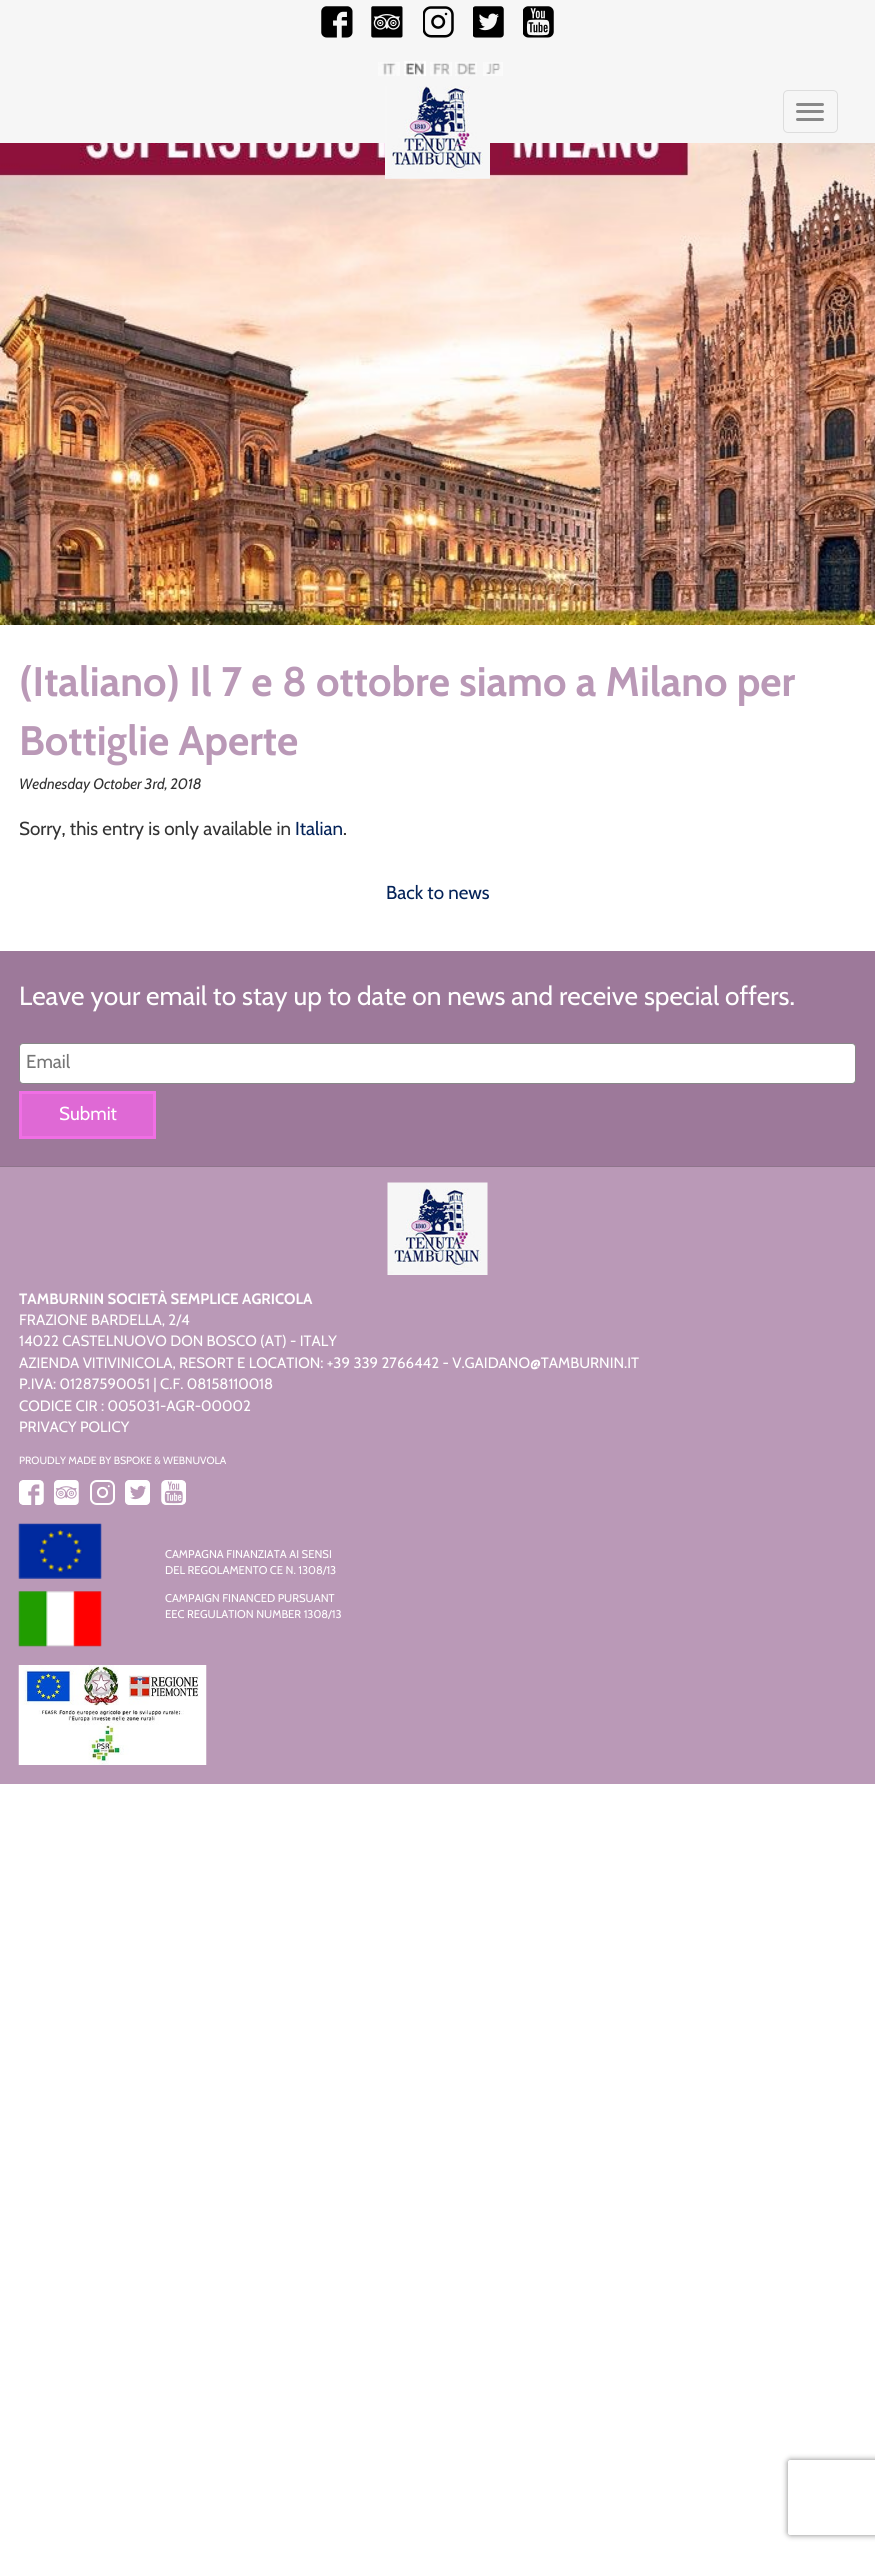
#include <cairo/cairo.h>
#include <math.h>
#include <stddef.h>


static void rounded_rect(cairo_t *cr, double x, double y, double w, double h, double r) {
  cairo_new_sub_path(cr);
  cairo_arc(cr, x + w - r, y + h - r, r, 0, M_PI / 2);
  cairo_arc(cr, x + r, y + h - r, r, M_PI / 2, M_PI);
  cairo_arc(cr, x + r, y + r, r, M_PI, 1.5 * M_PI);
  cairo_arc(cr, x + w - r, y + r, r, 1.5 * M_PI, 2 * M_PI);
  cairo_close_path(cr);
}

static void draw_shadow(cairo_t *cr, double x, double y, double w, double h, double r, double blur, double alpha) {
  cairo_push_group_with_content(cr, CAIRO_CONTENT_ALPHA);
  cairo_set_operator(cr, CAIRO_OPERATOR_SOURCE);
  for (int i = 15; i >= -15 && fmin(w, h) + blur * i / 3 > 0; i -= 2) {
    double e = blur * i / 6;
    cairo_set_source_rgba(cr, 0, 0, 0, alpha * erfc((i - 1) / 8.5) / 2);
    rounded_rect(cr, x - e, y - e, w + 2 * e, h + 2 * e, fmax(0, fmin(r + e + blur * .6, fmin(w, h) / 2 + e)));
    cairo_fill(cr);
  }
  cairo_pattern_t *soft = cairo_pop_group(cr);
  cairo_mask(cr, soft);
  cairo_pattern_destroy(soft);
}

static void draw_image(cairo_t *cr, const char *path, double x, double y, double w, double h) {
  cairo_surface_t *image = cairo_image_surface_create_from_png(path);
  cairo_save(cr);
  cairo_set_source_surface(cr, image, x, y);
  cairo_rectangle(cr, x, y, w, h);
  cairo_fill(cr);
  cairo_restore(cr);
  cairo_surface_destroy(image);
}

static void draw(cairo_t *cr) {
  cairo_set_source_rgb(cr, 1, 1, 1);
  cairo_paint(cr);
  cairo_set_source_rgb(cr, 246 / 255.0, 246 / 255.0, 246 / 255.0);
  cairo_rectangle(cr, 0, 0, 875, 143);
  cairo_fill(cr);
  draw_image(cr, "images/1.png", 321, 6, 32, 32);
  draw_image(cr, "images/2.png", 371, 6, 32, 32);
  draw_image(cr, "images/3.png", 423, 6, 31, 32);
  draw_image(cr, "images/4.png", 473, 6, 31, 32);
  draw_image(cr, "images/5.png", 523, 6, 31, 32);
  draw_image(cr, "images/6.png", 378, 62, 22, 14);
  draw_image(cr, "images/7.png", 404, 61, 22, 15);
  draw_image(cr, "images/8.png", 430, 62, 22, 14);
  draw_image(cr, "images/9.png", 455, 62, 22, 14);
  draw_image(cr, "images/10.png", 483, 62, 20, 14);
  draw_image(cr, "images/12.png", 0, 143, 875, 482);
  draw_image(cr, "images/11.png", 385, 86, 105, 93);
  rounded_rect(cr, 783.5, 90.5, 54, 42, 4.5);
  cairo_set_source_rgb(cr, 221 / 255.0, 221 / 255.0, 221 / 255.0);
  cairo_set_line_width(cr, 1);
  cairo_stroke(cr);
  cairo_set_source_rgb(cr, 136 / 255.0, 136 / 255.0, 136 / 255.0);
  rounded_rect(cr, 796, 103, 28, 3, 1.5);
  cairo_fill(cr);
  rounded_rect(cr, 796, 110, 28, 3, 1.5);
  cairo_fill(cr);
  rounded_rect(cr, 796, 118, 28, 3, 1.5);
  cairo_fill(cr);
  cairo_set_source_rgb(cr, 157 / 255.0, 121 / 255.0, 154 / 255.0);
  cairo_rectangle(cr, 0, 951, 875, 215);
  cairo_fill(cr);
  cairo_set_source_rgb(cr, 1, 1, 1);
  rounded_rect(cr, 19.5, 1043.5, 836, 40, 3.5);
  cairo_fill_preserve(cr);
  cairo_set_source_rgb(cr, 136 / 255.0, 136 / 255.0, 136 / 255.0);
  cairo_stroke(cr);
  cairo_set_source_rgb(cr, 223 / 255.0, 105 / 255.0, 213 / 255.0);
  cairo_rectangle(cr, 20.5, 1092.5, 134, 45);
  cairo_fill_preserve(cr);
  cairo_set_source_rgb(cr, 240 / 255.0, 111 / 255.0, 229 / 255.0);
  cairo_set_line_width(cr, 3);
  cairo_stroke(cr);
  cairo_set_source_rgb(cr, 186 / 255.0, 153 / 255.0, 183 / 255.0);
  cairo_rectangle(cr, 0, 1167, 875, 617);
  cairo_fill(cr);
  cairo_set_source_rgb(cr, 142 / 255.0, 116 / 255.0, 139 / 255.0);
  cairo_rectangle(cr, 0, 1166, 875, 1);
  cairo_fill(cr);
  draw_image(cr, "images/13.png", 387, 1182, 101, 93);
  draw_image(cr, "images/14.png", 19, 1480, 25, 25);
  draw_image(cr, "images/15.png", 54, 1480, 25, 25);
  draw_image(cr, "images/16.png", 90, 1480, 25, 25);
  draw_image(cr, "images/17.png", 125, 1480, 25, 25);
  draw_image(cr, "images/18.png", 161, 1480, 25, 25);
  draw_image(cr, "images/19.png", 18, 1523, 84, 124);
  draw_image(cr, "images/20.png", 18, 1665, 189, 100);
  cairo_save(cr);
  cairo_set_fill_rule(cr, CAIRO_FILL_RULE_EVEN_ODD);
  cairo_new_path(cr);
  cairo_move_to(cr, 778, 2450);
  cairo_line_to(cr, 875, 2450);
  cairo_line_to(cr, 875, 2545);
  cairo_line_to(cr, 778, 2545);
  cairo_close_path(cr);
  cairo_move_to(cr, 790.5, 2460);
  cairo_line_to(cr, 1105.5, 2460);
  cairo_curve_to(cr, 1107, 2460, 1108, 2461, 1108, 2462.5);
  cairo_line_to(cr, 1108, 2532.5);
  cairo_curve_to(cr, 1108, 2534, 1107, 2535, 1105.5, 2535);
  cairo_line_to(cr, 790.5, 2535);
  cairo_curve_to(cr, 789, 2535, 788, 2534, 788, 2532.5);
  cairo_line_to(cr, 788, 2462.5);
  cairo_curve_to(cr, 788, 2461, 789, 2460, 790.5, 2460);
  cairo_close_path(cr);
  cairo_clip(cr);
  cairo_set_source_rgb(cr, 128 / 255.0, 128 / 255.0, 128 / 255.0);
  draw_shadow(cr, 788, 2460, 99, 75, 2.5, 3, 1);
  cairo_restore(cr);
  cairo_select_font_face(cr, "Cabin", CAIRO_FONT_SLANT_NORMAL, CAIRO_FONT_WEIGHT_BOLD);
  cairo_set_font_size(cr, 41.25);
  cairo_set_source_rgb(cr, 186 / 255.0, 153 / 255.0, 183 / 255.0);
  cairo_move_to(cr, 19, 696);
  cairo_show_text(cr, "(Italiano) Il 7 e 8 ottobre siamo a Milano per");
  cairo_move_to(cr, 19, 755);
  cairo_show_text(cr, "Bottiglie Aperte");
  cairo_select_font_face(cr, "Cabin", CAIRO_FONT_SLANT_ITALIC, CAIRO_FONT_WEIGHT_NORMAL);
  cairo_set_font_size(cr, 15);
  cairo_set_source_rgb(cr, 51 / 255.0, 51 / 255.0, 51 / 255.0);
  cairo_move_to(cr, 19, 789);
  cairo_show_text(cr, "Wednesday October 3rd, 2018");
  cairo_select_font_face(cr, "Cabin", CAIRO_FONT_SLANT_NORMAL, CAIRO_FONT_WEIGHT_NORMAL);
  cairo_set_font_size(cr, 18.75);
  cairo_move_to(cr, 19, 835);
  cairo_show_text(cr, "Sorry, this entry is only available in");
  cairo_set_source_rgb(cr, 3 / 255.0, 34 / 255.0, 88 / 255.0);
  cairo_move_to(cr, 295, 835);
  cairo_show_text(cr, "Italian");
  cairo_set_source_rgb(cr, 51 / 255.0, 51 / 255.0, 51 / 255.0);
  cairo_move_to(cr, 343, 835);
  cairo_show_text(cr, ".");
  cairo_set_source_rgb(cr, 3 / 255.0, 34 / 255.0, 88 / 255.0);
  cairo_move_to(cr, 386, 899);
  cairo_show_text(cr, "Back to news");
  cairo_set_font_size(cr, 26.25);
  cairo_set_source_rgb(cr, 1, 1, 1);
  cairo_move_to(cr, 19, 1005);
  cairo_show_text(cr, "Leave your email to stay up to date on news and receive special offers.");
  cairo_set_font_size(cr, 18.75);
  cairo_set_source_rgb(cr, 117 / 255.0, 117 / 255.0, 117 / 255.0);
  cairo_move_to(cr, 26, 1068);
  cairo_show_text(cr, "Email");
  cairo_set_source_rgb(cr, 1, 1, 1);
  cairo_move_to(cr, 59, 1120);
  cairo_show_text(cr, "Submit");
  cairo_select_font_face(cr, "Cabin", CAIRO_FONT_SLANT_NORMAL, CAIRO_FONT_WEIGHT_BOLD);
  cairo_set_font_size(cr, 15);
  cairo_move_to(cr, 19, 1304);
  cairo_show_text(cr, "TAMBURNIN SOCIETÀ SEMPLICE AGRICOLA");
  cairo_select_font_face(cr, "Cabin", CAIRO_FONT_SLANT_NORMAL, CAIRO_FONT_WEIGHT_NORMAL);
  cairo_move_to(cr, 19, 1325);
  cairo_show_text(cr, "FRAZIONE BARDELLA, 2/4");
  cairo_move_to(cr, 19, 1346);
  cairo_show_text(cr, "14022 CASTELNUOVO DON BOSCO (AT) - ITALY");
  cairo_move_to(cr, 19, 1368);
  cairo_show_text(cr, "AZIENDA VITIVINICOLA, RESORT E LOCATION: +39 339 2766442 - V.GAIDANO@TAMBURNIN.IT");
  cairo_move_to(cr, 19, 1389);
  cairo_show_text(cr, "P.IVA: 01287590051 | C.F. 08158110018");
  cairo_move_to(cr, 19, 1411);
  cairo_show_text(cr, "CODICE CIR : 005031-AGR-00002");
  cairo_move_to(cr, 19, 1432);
  cairo_show_text(cr, "PRIVACY POLICY");
  cairo_set_font_size(cr, 10.5);
  cairo_move_to(cr, 19, 1464);
  cairo_show_text(cr, "PROUDLY MADE BY BSPOKE & WEBNUVOLA");
  cairo_set_font_size(cr, 11.25);
  cairo_move_to(cr, 165, 1558);
  cairo_show_text(cr, "CAMPAGNA FINANZIATA AI SENSI");
  cairo_move_to(cr, 165, 1574);
  cairo_show_text(cr, "DEL REGOLAMENTO CE N. 1308/13");
  cairo_move_to(cr, 165, 1602);
  cairo_show_text(cr, "CAMPAIGN FINANCED PURSUANT");
  cairo_move_to(cr, 165, 1618);
  cairo_show_text(cr, "EEC REGULATION NUMBER 1308/13");
}

int main(void) {
  cairo_surface_t *surface = cairo_image_surface_create(CAIRO_FORMAT_RGB24, 875, 2552);
  cairo_t *cr = cairo_create(surface);
  cairo_font_options_t *options = cairo_font_options_create();
  cairo_font_options_set_hint_metrics(options, CAIRO_HINT_METRICS_OFF);
  cairo_font_options_set_hint_style(options, CAIRO_HINT_STYLE_NONE);
  cairo_set_font_options(cr, options);
  cairo_set_miter_limit(cr, 4);
  draw(cr);
  cairo_surface_write_to_png(surface, "out.png");
  cairo_font_options_destroy(options);
  cairo_destroy(cr);
  cairo_surface_destroy(surface);
  return 0;
}
